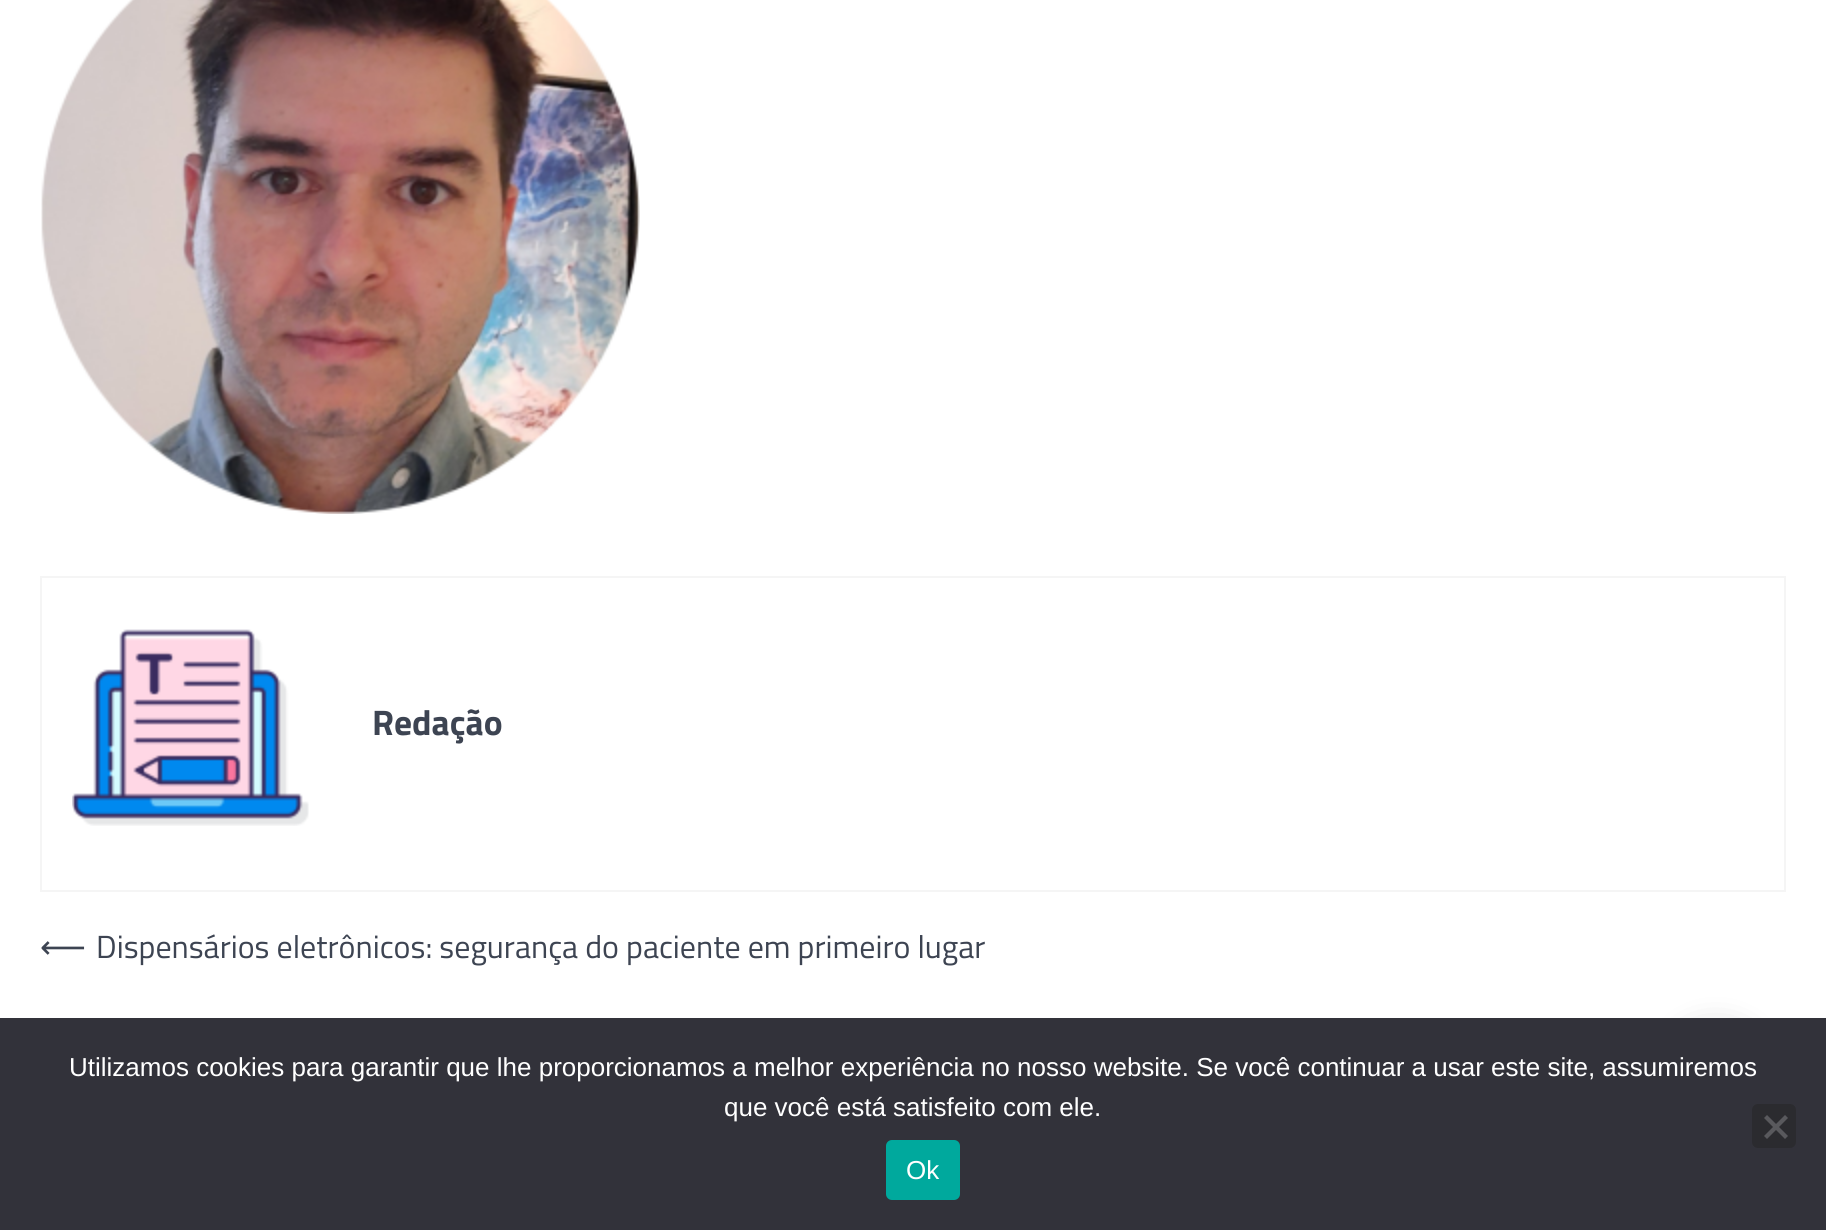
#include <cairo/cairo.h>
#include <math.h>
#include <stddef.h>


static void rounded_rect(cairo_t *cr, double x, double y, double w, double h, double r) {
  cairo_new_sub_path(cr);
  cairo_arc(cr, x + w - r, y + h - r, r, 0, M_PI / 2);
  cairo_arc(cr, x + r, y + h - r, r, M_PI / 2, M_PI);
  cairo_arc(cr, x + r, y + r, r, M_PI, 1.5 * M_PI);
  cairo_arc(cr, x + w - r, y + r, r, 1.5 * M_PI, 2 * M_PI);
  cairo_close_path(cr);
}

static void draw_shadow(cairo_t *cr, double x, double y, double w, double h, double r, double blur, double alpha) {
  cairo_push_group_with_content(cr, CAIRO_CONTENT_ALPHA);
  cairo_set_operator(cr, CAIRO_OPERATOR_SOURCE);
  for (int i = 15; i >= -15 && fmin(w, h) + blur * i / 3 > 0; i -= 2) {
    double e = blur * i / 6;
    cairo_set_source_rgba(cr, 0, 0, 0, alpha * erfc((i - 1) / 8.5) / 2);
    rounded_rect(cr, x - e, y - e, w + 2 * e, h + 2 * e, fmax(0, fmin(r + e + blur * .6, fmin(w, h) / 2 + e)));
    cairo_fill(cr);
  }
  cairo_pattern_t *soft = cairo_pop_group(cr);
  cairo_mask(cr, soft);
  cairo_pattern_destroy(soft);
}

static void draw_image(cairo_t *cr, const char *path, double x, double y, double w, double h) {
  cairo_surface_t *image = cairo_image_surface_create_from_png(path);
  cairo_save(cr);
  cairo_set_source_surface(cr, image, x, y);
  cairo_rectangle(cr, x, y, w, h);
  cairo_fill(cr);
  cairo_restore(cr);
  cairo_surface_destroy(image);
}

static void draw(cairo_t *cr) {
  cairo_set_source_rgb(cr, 1, 1, 1);
  cairo_paint(cr);
  draw_image(cr, "images/1.png", 41, 0, 599, 514);
  cairo_rectangle(cr, 41, 577, 1744, 314);
  cairo_set_source_rgb(cr, 245 / 255.0, 245 / 255.0, 245 / 255.0);
  cairo_stroke(cr);
  draw_image(cr, "images/2.png", 72, 629, 237, 197);
  cairo_set_source_rgb(cr, 0, 0, 0);
  draw_shadow(cr, 1666, 1026, 100, 100, 50, 16, 0.15);
  cairo_set_source_rgb(cr, 50 / 255.0, 50 / 255.0, 58 / 255.0);
  cairo_rectangle(cr, 0, 1018, 1826, 212);
  cairo_fill(cr);
  cairo_set_source_rgb(cr, 43 / 255.0, 43 / 255.0, 47 / 255.0);
  rounded_rect(cr, 1753, 1105, 42, 42, 5);
  cairo_fill_preserve(cr);
  cairo_stroke(cr);
  cairo_set_source_rgb(cr, 89 / 255.0, 89 / 255.0, 93 / 255.0);
  cairo_new_path(cr);
  cairo_move_to(cr, 1785, 1115);
  cairo_line_to(cr, 1788, 1118);
  cairo_line_to(cr, 1767, 1139);
  cairo_line_to(cr, 1764, 1136);
  cairo_close_path(cr);
  cairo_fill(cr);
  cairo_new_path(cr);
  cairo_move_to(cr, 1764, 1118);
  cairo_line_to(cr, 1767, 1115);
  cairo_line_to(cr, 1788, 1136);
  cairo_line_to(cr, 1785, 1139);
  cairo_close_path(cr);
  cairo_fill(cr);
  cairo_set_source_rgb(cr, 0, 169 / 255.0, 157 / 255.0);
  rounded_rect(cr, 886, 1140, 74, 60, 6);
  cairo_fill(cr);
  cairo_select_font_face(cr, "Titillium Web", CAIRO_FONT_SLANT_NORMAL, CAIRO_FONT_WEIGHT_BOLD);
  cairo_set_font_size(cr, 35.5);
  cairo_set_source_rgb(cr, 61 / 255.0, 68 / 255.0, 82 / 255.0);
  cairo_move_to(cr, 372, 735);
  cairo_show_text(cr, "Redação");
  cairo_select_font_face(cr, "DejaVu Sans", CAIRO_FONT_SLANT_NORMAL, CAIRO_FONT_WEIGHT_NORMAL);
  cairo_set_font_size(cr, 32);
  cairo_move_to(cr, 40, 958);
  cairo_show_text(cr, "⟵");
  cairo_select_font_face(cr, "Titillium Web", CAIRO_FONT_SLANT_NORMAL, CAIRO_FONT_WEIGHT_NORMAL);
  cairo_move_to(cr, 96, 958);
  cairo_show_text(cr, "Dispensários eletrônicos: segurança do paciente em primeiro lugar");
  cairo_select_font_face(cr, "Liberation Sans", CAIRO_FONT_SLANT_NORMAL, CAIRO_FONT_WEIGHT_NORMAL);
  cairo_set_font_size(cr, 26);
  cairo_set_source_rgb(cr, 1, 1, 1);
  cairo_move_to(cr, 69, 1076);
  cairo_show_text(cr, "Utilizamos cookies para garantir que lhe proporcionamos a melhor experiência no nosso website. Se você continuar a usar este site, assumiremos");
  cairo_move_to(cr, 724, 1116);
  cairo_show_text(cr, "que você está satisfeito com ele.");
  cairo_move_to(cr, 906, 1179);
  cairo_show_text(cr, "Ok");
}

int main(void) {
  cairo_surface_t *surface = cairo_image_surface_create(CAIRO_FORMAT_RGB24, 1826, 1230);
  cairo_t *cr = cairo_create(surface);
  cairo_font_options_t *options = cairo_font_options_create();
  cairo_font_options_set_hint_metrics(options, CAIRO_HINT_METRICS_OFF);
  cairo_font_options_set_hint_style(options, CAIRO_HINT_STYLE_NONE);
  cairo_set_font_options(cr, options);
  cairo_set_miter_limit(cr, 4);
  draw(cr);
  cairo_surface_write_to_png(surface, "out.png");
  cairo_font_options_destroy(options);
  cairo_destroy(cr);
  cairo_surface_destroy(surface);
  return 0;
}
